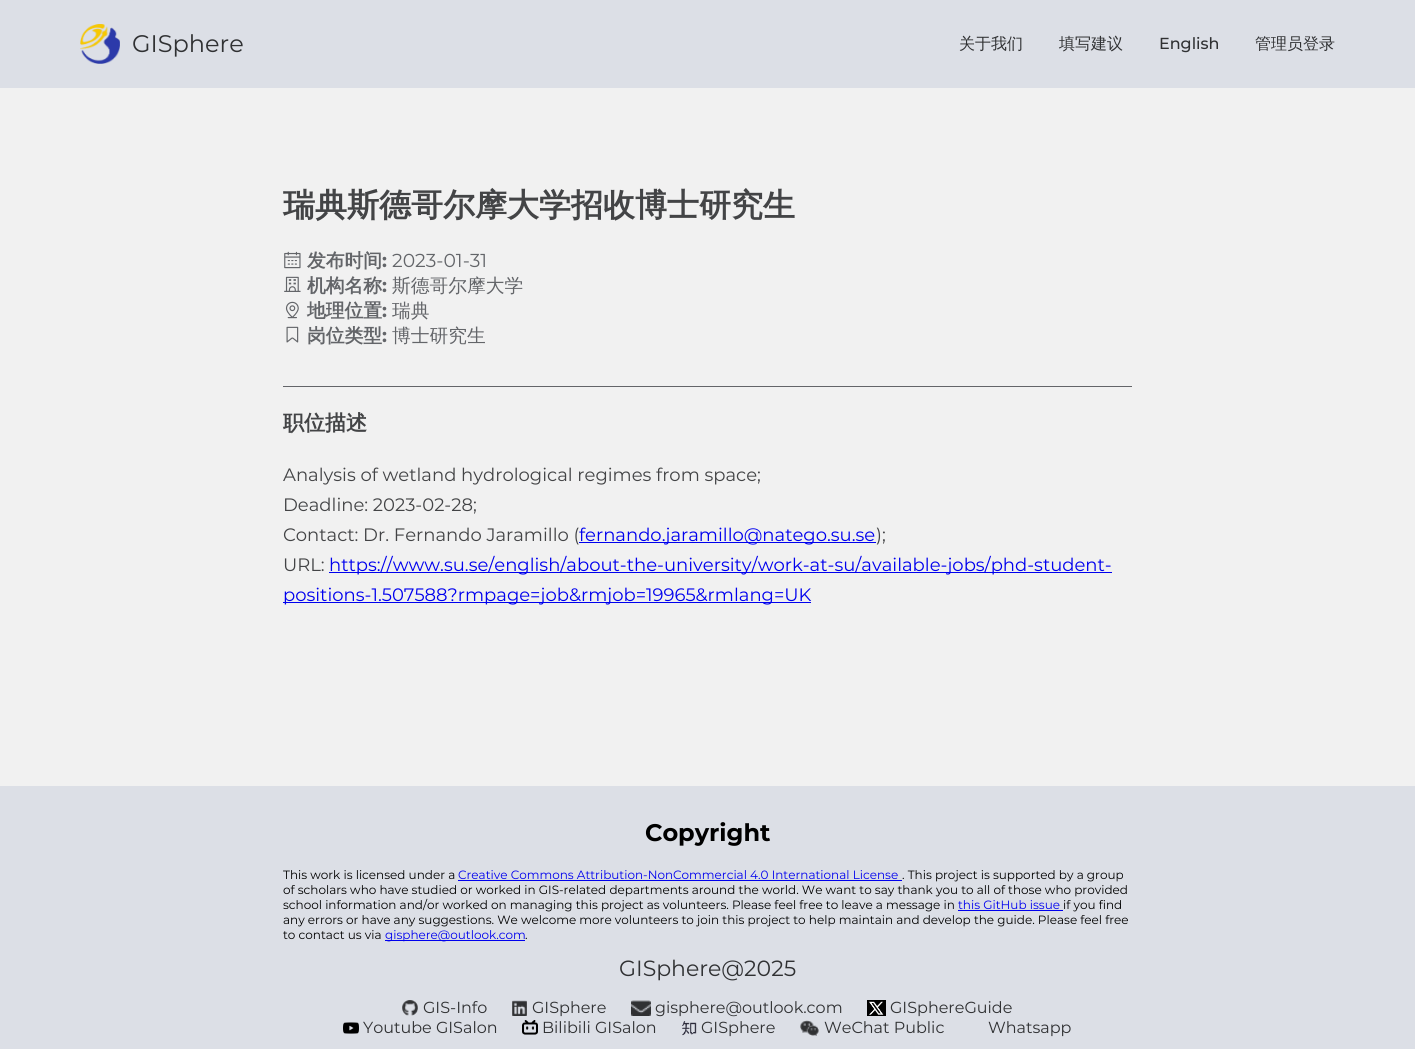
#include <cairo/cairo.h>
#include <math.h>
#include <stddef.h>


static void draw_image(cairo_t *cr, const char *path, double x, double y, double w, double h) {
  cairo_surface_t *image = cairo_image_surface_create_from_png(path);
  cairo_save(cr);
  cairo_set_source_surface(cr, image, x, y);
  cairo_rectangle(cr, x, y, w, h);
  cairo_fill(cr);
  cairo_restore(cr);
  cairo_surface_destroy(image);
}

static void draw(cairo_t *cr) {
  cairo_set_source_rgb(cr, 220 / 255.0, 223 / 255.0, 230 / 255.0);
  cairo_paint(cr);
  draw_image(cr, "images/1.png", 80, 24, 40, 40);
  cairo_set_source_rgb(cr, 241 / 255.0, 241 / 255.0, 241 / 255.0);
  cairo_rectangle(cr, 0, 88, 1415, 698);
  cairo_fill(cr);
  draw_image(cr, "images/2.png", 284, 251, 17, 18);
  draw_image(cr, "images/3.png", 284, 276, 17, 16);
  draw_image(cr, "images/4.png", 285, 301, 14, 18);
  draw_image(cr, "images/5.png", 286, 326, 13, 17);
  cairo_set_source_rgb(cr, 99 / 255.0, 101 / 255.0, 105 / 255.0);
  cairo_rectangle(cr, 283, 386, 849, 1);
  cairo_fill(cr);
  cairo_set_source_rgb(cr, 0, 0, 238 / 255.0);
  cairo_rectangle(cr, 579, 542, 297, 1);
  cairo_fill(cr);
  cairo_rectangle(cr, 329, 572, 783, 1);
  cairo_fill(cr);
  cairo_rectangle(cr, 283, 602, 528, 1);
  cairo_fill(cr);
  cairo_rectangle(cr, 458, 880, 444, 1);
  cairo_fill(cr);
  cairo_rectangle(cr, 958, 910, 105, 1);
  cairo_fill(cr);
  cairo_rectangle(cr, 385, 940, 140, 1);
  cairo_fill(cr);
  draw_image(cr, "images/6.png", 402, 1000, 16, 16);
  draw_image(cr, "images/7.png", 512, 1000, 15, 16);
  draw_image(cr, "images/8.png", 631, 1000, 20, 16);
  draw_image(cr, "images/9.png", 867, 1000, 19, 16);
  draw_image(cr, "images/10.png", 343, 1022, 16, 12);
  draw_image(cr, "images/11.png", 522, 1020, 16, 15);
  draw_image(cr, "images/12.png", 682, 1021, 15, 15);
  draw_image(cr, "images/13.png", 800, 1020, 19, 16);
  cairo_select_font_face(cr, "Montserrat", CAIRO_FONT_SLANT_NORMAL, CAIRO_FONT_WEIGHT_NORMAL);
  cairo_set_font_size(cr, 24);
  cairo_set_source_rgb(cr, 48 / 255.0, 49 / 255.0, 51 / 255.0);
  cairo_move_to(cr, 132, 52);
  cairo_show_text(cr, "GISphere");
  cairo_select_font_face(cr, "WenQuanYi Zen Hei Medium", CAIRO_FONT_SLANT_NORMAL, CAIRO_FONT_WEIGHT_NORMAL);
  cairo_set_font_size(cr, 16);
  cairo_move_to(cr, 959, 49);
  cairo_show_text(cr, "关于我们");
  cairo_move_to(cr, 1059, 49);
  cairo_show_text(cr, "填写建议");
  cairo_select_font_face(cr, "Montserrat Medium", CAIRO_FONT_SLANT_NORMAL, CAIRO_FONT_WEIGHT_NORMAL);
  cairo_move_to(cr, 1159, 49);
  cairo_show_text(cr, "English");
  cairo_select_font_face(cr, "WenQuanYi Zen Hei Medium", CAIRO_FONT_SLANT_NORMAL, CAIRO_FONT_WEIGHT_NORMAL);
  cairo_move_to(cr, 1255, 49);
  cairo_show_text(cr, "管理员登录");
  cairo_select_font_face(cr, "WenQuanYi Zen Hei", CAIRO_FONT_SLANT_NORMAL, CAIRO_FONT_WEIGHT_BOLD);
  cairo_set_font_size(cr, 32);
  cairo_set_source_rgb(cr, 67 / 255.0, 68 / 255.0, 70 / 255.0);
  cairo_move_to(cr, 283, 216);
  cairo_show_text(cr, "瑞典斯德哥尔摩大学招收博士研究生");
  cairo_set_font_size(cr, 18.75);
  cairo_set_source_rgb(cr, 99 / 255.0, 101 / 255.0, 105 / 255.0);
  cairo_move_to(cr, 307, 267);
  cairo_show_text(cr, "发布时间");
  cairo_select_font_face(cr, "Montserrat", CAIRO_FONT_SLANT_NORMAL, CAIRO_FONT_WEIGHT_BOLD);
  cairo_move_to(cr, 382, 267);
  cairo_show_text(cr, ":");
  cairo_select_font_face(cr, "Montserrat", CAIRO_FONT_SLANT_NORMAL, CAIRO_FONT_WEIGHT_NORMAL);
  cairo_move_to(cr, 392, 267);
  cairo_show_text(cr, "2023-01-31");
  cairo_select_font_face(cr, "WenQuanYi Zen Hei", CAIRO_FONT_SLANT_NORMAL, CAIRO_FONT_WEIGHT_BOLD);
  cairo_move_to(cr, 307, 292);
  cairo_show_text(cr, "机构名称");
  cairo_select_font_face(cr, "Montserrat", CAIRO_FONT_SLANT_NORMAL, CAIRO_FONT_WEIGHT_BOLD);
  cairo_move_to(cr, 382, 292);
  cairo_show_text(cr, ":");
  cairo_select_font_face(cr, "WenQuanYi Zen Hei Medium", CAIRO_FONT_SLANT_NORMAL, CAIRO_FONT_WEIGHT_NORMAL);
  cairo_move_to(cr, 392, 292);
  cairo_show_text(cr, "斯德哥尔摩大学");
  cairo_select_font_face(cr, "WenQuanYi Zen Hei", CAIRO_FONT_SLANT_NORMAL, CAIRO_FONT_WEIGHT_BOLD);
  cairo_move_to(cr, 307, 317);
  cairo_show_text(cr, "地理位置");
  cairo_select_font_face(cr, "Montserrat", CAIRO_FONT_SLANT_NORMAL, CAIRO_FONT_WEIGHT_BOLD);
  cairo_move_to(cr, 382, 317);
  cairo_show_text(cr, ":");
  cairo_select_font_face(cr, "WenQuanYi Zen Hei Medium", CAIRO_FONT_SLANT_NORMAL, CAIRO_FONT_WEIGHT_NORMAL);
  cairo_move_to(cr, 392, 317);
  cairo_show_text(cr, "瑞典");
  cairo_select_font_face(cr, "WenQuanYi Zen Hei", CAIRO_FONT_SLANT_NORMAL, CAIRO_FONT_WEIGHT_BOLD);
  cairo_move_to(cr, 307, 342);
  cairo_show_text(cr, "岗位类型");
  cairo_select_font_face(cr, "Montserrat", CAIRO_FONT_SLANT_NORMAL, CAIRO_FONT_WEIGHT_BOLD);
  cairo_move_to(cr, 382, 342);
  cairo_show_text(cr, ":");
  cairo_select_font_face(cr, "WenQuanYi Zen Hei Medium", CAIRO_FONT_SLANT_NORMAL, CAIRO_FONT_WEIGHT_NORMAL);
  cairo_move_to(cr, 392, 342);
  cairo_show_text(cr, "博士研究生");
  cairo_select_font_face(cr, "WenQuanYi Zen Hei", CAIRO_FONT_SLANT_NORMAL, CAIRO_FONT_WEIGHT_BOLD);
  cairo_set_font_size(cr, 21);
  cairo_set_source_rgb(cr, 67 / 255.0, 68 / 255.0, 70 / 255.0);
  cairo_move_to(cr, 283, 430);
  cairo_show_text(cr, "职位描述");
  cairo_select_font_face(cr, "Montserrat", CAIRO_FONT_SLANT_NORMAL, CAIRO_FONT_WEIGHT_NORMAL);
  cairo_set_font_size(cr, 18);
  cairo_move_to(cr, 283, 481);
  cairo_show_text(cr, "Analysis of wetland hydrological regimes from space;");
  cairo_move_to(cr, 283, 511);
  cairo_show_text(cr, "Deadline: 2023-02-28;");
  cairo_move_to(cr, 283, 541);
  cairo_show_text(cr, "Contact: Dr. Fernando Jaramillo (");
  cairo_set_source_rgb(cr, 0, 0, 238 / 255.0);
  cairo_move_to(cr, 579, 541);
  cairo_show_text(cr, "fernando.jaramillo@natego.su.se");
  cairo_set_source_rgb(cr, 67 / 255.0, 68 / 255.0, 70 / 255.0);
  cairo_move_to(cr, 876, 541);
  cairo_show_text(cr, ");");
  cairo_move_to(cr, 283, 571);
  cairo_show_text(cr, "URL:");
  cairo_set_source_rgb(cr, 0, 0, 238 / 255.0);
  cairo_move_to(cr, 329, 571);
  cairo_show_text(cr, "https://www.su.se/english/about-the-university/work-at-su/available-jobs/phd-student-");
  cairo_move_to(cr, 283, 601);
  cairo_show_text(cr, "positions-1.507588?rmpage=job&rmjob=19965&rmlang=UK");
  cairo_select_font_face(cr, "Montserrat", CAIRO_FONT_SLANT_NORMAL, CAIRO_FONT_WEIGHT_BOLD);
  cairo_set_font_size(cr, 24);
  cairo_set_source_rgb(cr, 0, 0, 0);
  cairo_move_to(cr, 645, 841);
  cairo_show_text(cr, "Copyright");
  cairo_select_font_face(cr, "Montserrat", CAIRO_FONT_SLANT_NORMAL, CAIRO_FONT_WEIGHT_NORMAL);
  cairo_set_font_size(cr, 12);
  cairo_move_to(cr, 283, 879);
  cairo_show_text(cr, "This work is licensed under a");
  cairo_set_source_rgb(cr, 0, 0, 238 / 255.0);
  cairo_move_to(cr, 458, 879);
  cairo_show_text(cr, "Creative Commons Attribution-NonCommercial 4.0 International License");
  cairo_set_source_rgb(cr, 0, 0, 0);
  cairo_move_to(cr, 902, 879);
  cairo_show_text(cr, ". This project is supported by a group");
  cairo_move_to(cr, 283, 894);
  cairo_show_text(cr, "of scholars who have studied or worked in GIS-related departments around the world. We want to say thank you to all of those who provided");
  cairo_move_to(cr, 283, 909);
  cairo_show_text(cr, "school information and/or worked on managing this project as volunteers. Please feel free to leave a message in");
  cairo_set_source_rgb(cr, 0, 0, 238 / 255.0);
  cairo_move_to(cr, 958, 909);
  cairo_show_text(cr, "this GitHub issue");
  cairo_set_source_rgb(cr, 0, 0, 0);
  cairo_move_to(cr, 1063, 909);
  cairo_show_text(cr, "if you find");
  cairo_move_to(cr, 283, 924);
  cairo_show_text(cr, "any errors or have any suggestions. We welcome more volunteers to join this project to help maintain and develop the guide. Please feel free");
  cairo_move_to(cr, 283, 939);
  cairo_show_text(cr, "to contact us via");
  cairo_set_source_rgb(cr, 0, 0, 238 / 255.0);
  cairo_move_to(cr, 385, 939);
  cairo_show_text(cr, "gisphere@outlook.com");
  cairo_set_source_rgb(cr, 0, 0, 0);
  cairo_move_to(cr, 525, 939);
  cairo_show_text(cr, ".");
  cairo_set_font_size(cr, 22);
  cairo_set_source_rgb(cr, 48 / 255.0, 49 / 255.0, 51 / 255.0);
  cairo_move_to(cr, 619, 976);
  cairo_show_text(cr, "GISphere@2025");
  cairo_set_font_size(cr, 16);
  cairo_move_to(cr, 423, 1013);
  cairo_show_text(cr, "GIS-Info");
  cairo_move_to(cr, 532, 1013);
  cairo_show_text(cr, "GISphere");
  cairo_move_to(cr, 655, 1013);
  cairo_show_text(cr, "gisphere@outlook.com");
  cairo_move_to(cr, 890, 1013);
  cairo_show_text(cr, "GISphereGuide");
  cairo_move_to(cr, 363, 1033);
  cairo_show_text(cr, "Youtube GISalon");
  cairo_move_to(cr, 542, 1033);
  cairo_show_text(cr, "Bilibili GISalon");
  cairo_move_to(cr, 701, 1033);
  cairo_show_text(cr, "GISphere");
  cairo_move_to(cr, 824, 1033);
  cairo_show_text(cr, "WeChat Public");
  cairo_move_to(cr, 988, 1033);
  cairo_show_text(cr, "Whatsapp");
}

int main(void) {
  cairo_surface_t *surface = cairo_image_surface_create(CAIRO_FORMAT_RGB24, 1415, 1049);
  cairo_t *cr = cairo_create(surface);
  cairo_font_options_t *options = cairo_font_options_create();
  cairo_font_options_set_hint_metrics(options, CAIRO_HINT_METRICS_OFF);
  cairo_font_options_set_hint_style(options, CAIRO_HINT_STYLE_NONE);
  cairo_set_font_options(cr, options);
  cairo_set_miter_limit(cr, 4);
  draw(cr);
  cairo_surface_write_to_png(surface, "out.png");
  cairo_font_options_destroy(options);
  cairo_destroy(cr);
  cairo_surface_destroy(surface);
  return 0;
}
